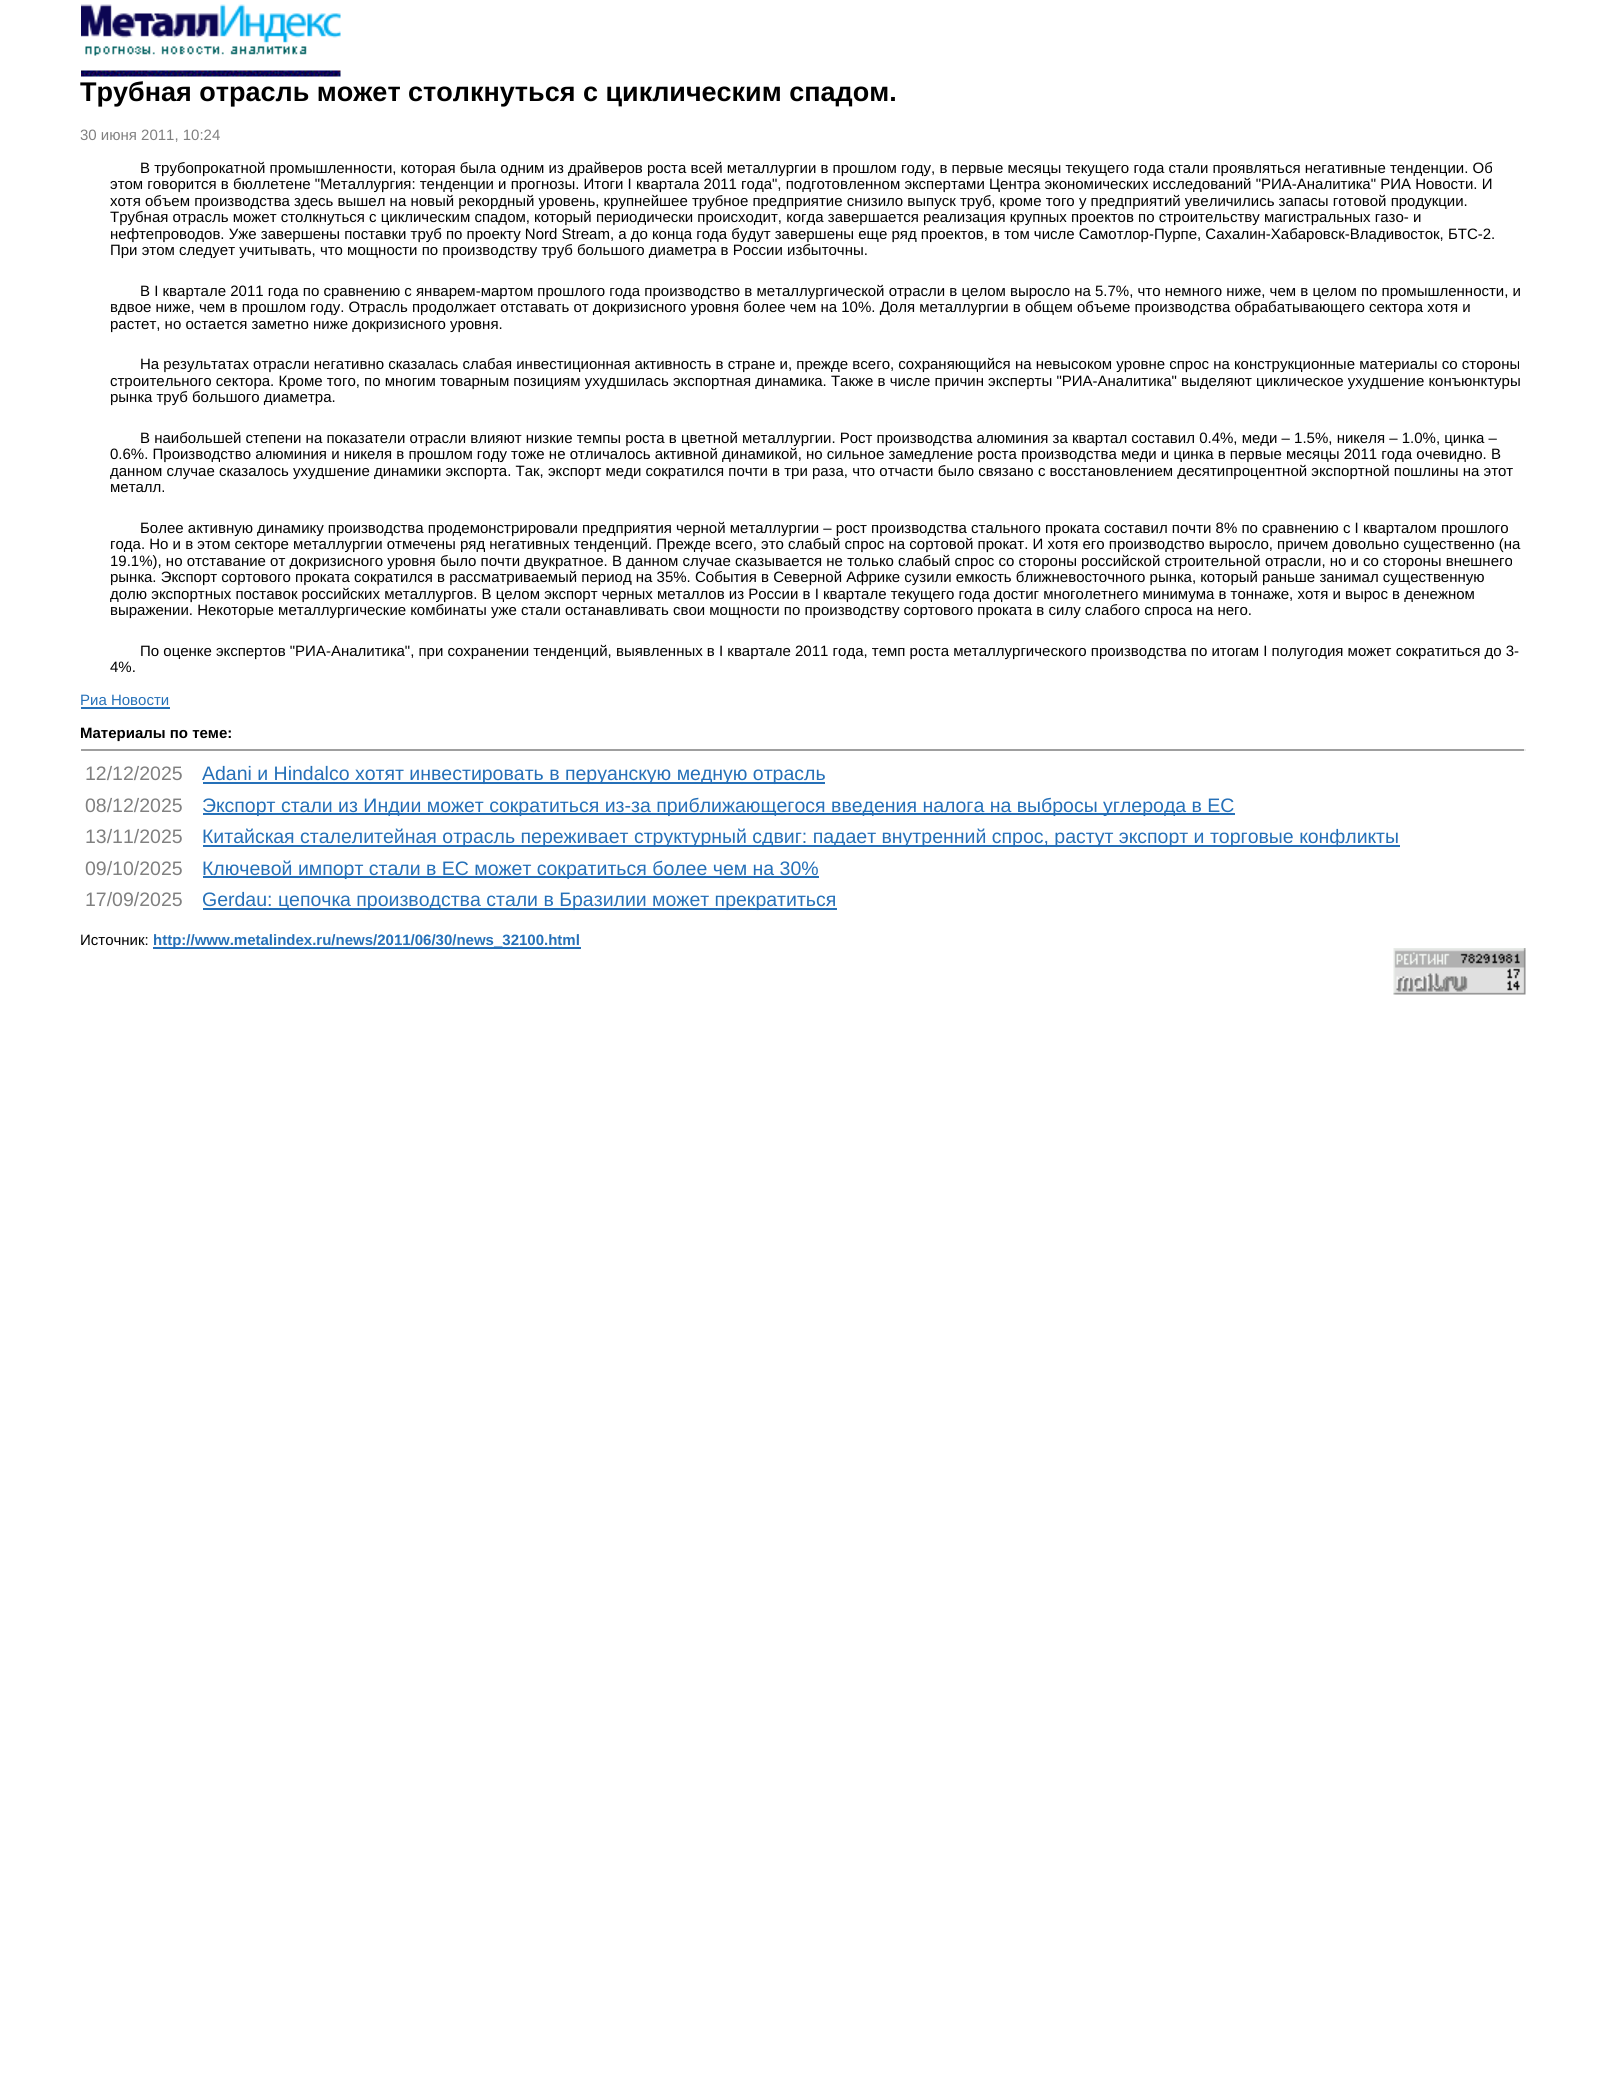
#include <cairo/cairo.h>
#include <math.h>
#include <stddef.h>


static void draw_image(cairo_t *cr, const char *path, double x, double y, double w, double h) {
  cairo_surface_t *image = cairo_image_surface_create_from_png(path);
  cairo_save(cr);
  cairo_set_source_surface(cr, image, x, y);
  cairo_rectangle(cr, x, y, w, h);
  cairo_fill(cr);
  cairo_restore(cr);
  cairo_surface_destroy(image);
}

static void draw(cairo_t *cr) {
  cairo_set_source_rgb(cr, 1, 1, 1);
  cairo_paint(cr);
  draw_image(cr, "images/1.png", 81, 4, 260, 52);
  draw_image(cr, "images/2.png", 81, 70, 260, 7);
  cairo_set_source_rgb(cr, 37 / 255.0, 112 / 255.0, 184 / 255.0);
  cairo_rectangle(cr, 81, 707, 89, 2);
  cairo_fill(cr);
  cairo_set_source_rgb(cr, 159 / 255.0, 159 / 255.0, 159 / 255.0);
  cairo_rectangle(cr, 81, 749, 1445, 2);
  cairo_fill(cr);
  cairo_set_source_rgb(cr, 238 / 255.0, 238 / 255.0, 238 / 255.0);
  cairo_rectangle(cr, 1524, 749, 2, 2);
  cairo_fill(cr);
  cairo_set_source_rgb(cr, 37 / 255.0, 112 / 255.0, 184 / 255.0);
  cairo_rectangle(cr, 203, 782, 622, 2);
  cairo_fill(cr);
  cairo_rectangle(cr, 203, 813, 1032, 2);
  cairo_fill(cr);
  cairo_rectangle(cr, 203, 845, 1197, 2);
  cairo_fill(cr);
  cairo_rectangle(cr, 203, 876, 616, 2);
  cairo_fill(cr);
  cairo_rectangle(cr, 203, 908, 634, 2);
  cairo_fill(cr);
  cairo_rectangle(cr, 153, 947, 428, 2);
  cairo_fill(cr);
  draw_image(cr, "images/3.png", 1393, 948, 133, 47);
  cairo_select_font_face(cr, "Liberation Sans", CAIRO_FONT_SLANT_NORMAL, CAIRO_FONT_WEIGHT_BOLD);
  cairo_set_font_size(cr, 27);
  cairo_set_source_rgb(cr, 0, 0, 0);
  cairo_move_to(cr, 80, 101);
  cairo_show_text(cr, "Трубная отрасль может столкнуться с циклическим спадом.");
  cairo_select_font_face(cr, "Liberation Sans", CAIRO_FONT_SLANT_NORMAL, CAIRO_FONT_WEIGHT_NORMAL);
  cairo_set_font_size(cr, 15);
  cairo_set_source_rgb(cr, 128 / 255.0, 128 / 255.0, 128 / 255.0);
  cairo_move_to(cr, 80, 140);
  cairo_show_text(cr, "30 июня 2011, 10:24");
  cairo_set_source_rgb(cr, 0, 0, 0);
  cairo_move_to(cr, 140, 173);
  cairo_show_text(cr, "В трубопрокатной промышленности, которая была одним из драйверов роста всей металлургии в прошлом году, в первые месяцы текущего года стали проявляться негативные тенденции. Об");
  cairo_move_to(cr, 110, 189);
  cairo_show_text(cr, "этом говорится в бюллетене \"Металлургия: тенденции и прогнозы. Итоги I квартала 2011 года\", подготовленном экспертами Центра экономических исследований \"РИА-Аналитика\" РИА Новости. И");
  cairo_move_to(cr, 110, 206);
  cairo_show_text(cr, "хотя объем производства здесь вышел на новый рекордный уровень, крупнейшее трубное предприятие снизило выпуск труб, кроме того у предприятий увеличились запасы готовой продукции.");
  cairo_move_to(cr, 110, 222);
  cairo_show_text(cr, "Трубная отрасль может столкнуться с циклическим спадом, который периодически происходит, когда завершается реализация крупных проектов по строительству магистральных газо- и");
  cairo_move_to(cr, 110, 239);
  cairo_show_text(cr, "нефтепроводов. Уже завершены поставки труб по проекту Nord Stream, а до конца года будут завершены еще ряд проектов, в том числе Самотлор-Пурпе, Сахалин-Хабаровск-Владивосток, БТС-2.");
  cairo_move_to(cr, 110, 255);
  cairo_show_text(cr, "При этом следует учитывать, что мощности по производству труб большого диаметра в России избыточны.");
  cairo_move_to(cr, 140, 296);
  cairo_show_text(cr, "В I квартале 2011 года по сравнению с январем-мартом прошлого года производство в металлургической отрасли в целом выросло на 5.7%, что немного ниже, чем в целом по промышленности, и");
  cairo_move_to(cr, 110, 312);
  cairo_show_text(cr, "вдвое ниже, чем в прошлом году. Отрасль продолжает отставать от докризисного уровня более чем на 10%. Доля металлургии в общем объеме производства обрабатывающего сектора хотя и");
  cairo_move_to(cr, 110, 329);
  cairo_show_text(cr, "растет, но остается заметно ниже докризисного уровня.");
  cairo_move_to(cr, 140, 369);
  cairo_show_text(cr, "На результатах отрасли негативно сказалась слабая инвестиционная активность в стране и, прежде всего, сохраняющийся на невысоком уровне спрос на конструкционные материалы со стороны");
  cairo_move_to(cr, 110, 386);
  cairo_show_text(cr, "строительного сектора. Кроме того, по многим товарным позициям ухудшилась экспортная динамика. Также в числе причин эксперты \"РИА-Аналитика\" выделяют циклическое ухудшение конъюнктуры");
  cairo_move_to(cr, 110, 402);
  cairo_show_text(cr, "рынка труб большого диаметра.");
  cairo_move_to(cr, 140, 443);
  cairo_show_text(cr, "В наибольшей степени на показатели отрасли влияют низкие темпы роста в цветной металлургии. Рост производства алюминия за квартал составил 0.4%, меди – 1.5%, никеля – 1.0%, цинка –");
  cairo_move_to(cr, 110, 459);
  cairo_show_text(cr, "0.6%. Производство алюминия и никеля в прошлом году тоже не отличалось активной динамикой, но сильное замедление роста производства меди и цинка в первые месяцы 2011 года очевидно. В");
  cairo_move_to(cr, 110, 476);
  cairo_show_text(cr, "данном случае сказалось ухудшение динамики экспорта. Так, экспорт меди сократился почти в три раза, что отчасти было связано с восстановлением десятипроцентной экспортной пошлины на этот");
  cairo_move_to(cr, 110, 492);
  cairo_show_text(cr, "металл.");
  cairo_move_to(cr, 140, 533);
  cairo_show_text(cr, "Более активную динамику производства продемонстрировали предприятия черной металлургии – рост производства стального проката составил почти 8% по сравнению с I кварталом прошлого");
  cairo_move_to(cr, 110, 549);
  cairo_show_text(cr, "года. Но и в этом секторе металлургии отмечены ряд негативных тенденций. Прежде всего, это слабый спрос на сортовой прокат. И хотя его производство выросло, причем довольно существенно (на");
  cairo_move_to(cr, 110, 566);
  cairo_show_text(cr, "19.1%), но отставание от докризисного уровня было почти двукратное. В данном случае сказывается не только слабый спрос со стороны российской строительной отрасли, но и со стороны внешнего");
  cairo_move_to(cr, 110, 582);
  cairo_show_text(cr, "рынка. Экспорт сортового проката сократился в рассматриваемый период на 35%. События в Северной Африке сузили емкость ближневосточного рынка, который раньше занимал существенную");
  cairo_move_to(cr, 110, 599);
  cairo_show_text(cr, "долю экспортных поставок российских металлургов. В целом экспорт черных металлов из России в I квартале текущего года достиг многолетнего минимума в тоннаже, хотя и вырос в денежном");
  cairo_move_to(cr, 110, 615);
  cairo_show_text(cr, "выражении. Некоторые металлургические комбинаты уже стали останавливать свои мощности по производству сортового проката в силу слабого спроса на него.");
  cairo_move_to(cr, 140, 656);
  cairo_show_text(cr, "По оценке экспертов \"РИА-Аналитика\", при сохранении тенденций, выявленных в I квартале 2011 года, темп роста металлургического производства по итогам I полугодия может сократиться до 3-");
  cairo_move_to(cr, 110, 672);
  cairo_show_text(cr, "4%.");
  cairo_set_source_rgb(cr, 37 / 255.0, 112 / 255.0, 184 / 255.0);
  cairo_move_to(cr, 80, 705);
  cairo_show_text(cr, "Риа Новости");
  cairo_select_font_face(cr, "Liberation Sans", CAIRO_FONT_SLANT_NORMAL, CAIRO_FONT_WEIGHT_BOLD);
  cairo_set_source_rgb(cr, 0, 0, 0);
  cairo_move_to(cr, 80, 738);
  cairo_show_text(cr, "Материалы по теме:");
  cairo_select_font_face(cr, "Liberation Sans", CAIRO_FONT_SLANT_NORMAL, CAIRO_FONT_WEIGHT_NORMAL);
  cairo_set_font_size(cr, 19.5);
  cairo_set_source_rgb(cr, 128 / 255.0, 128 / 255.0, 128 / 255.0);
  cairo_move_to(cr, 85, 780);
  cairo_show_text(cr, "12/12/2025");
  cairo_set_source_rgb(cr, 37 / 255.0, 112 / 255.0, 184 / 255.0);
  cairo_move_to(cr, 202, 780);
  cairo_show_text(cr, "Adani и Hindalco хотят инвестировать в перуанскую медную отрасль");
  cairo_set_source_rgb(cr, 128 / 255.0, 128 / 255.0, 128 / 255.0);
  cairo_move_to(cr, 85, 812);
  cairo_show_text(cr, "08/12/2025");
  cairo_set_source_rgb(cr, 37 / 255.0, 112 / 255.0, 184 / 255.0);
  cairo_move_to(cr, 202, 812);
  cairo_show_text(cr, "Экспорт стали из Индии может сократиться из-за приближающегося введения налога на выбросы углерода в ЕС");
  cairo_set_source_rgb(cr, 128 / 255.0, 128 / 255.0, 128 / 255.0);
  cairo_move_to(cr, 85, 843);
  cairo_show_text(cr, "13/11/2025");
  cairo_set_source_rgb(cr, 37 / 255.0, 112 / 255.0, 184 / 255.0);
  cairo_move_to(cr, 202, 843);
  cairo_show_text(cr, "Китайская сталелитейная отрасль переживает структурный сдвиг: падает внутренний спрос, растут экспорт и торговые конфликты");
  cairo_set_source_rgb(cr, 128 / 255.0, 128 / 255.0, 128 / 255.0);
  cairo_move_to(cr, 85, 875);
  cairo_show_text(cr, "09/10/2025");
  cairo_set_source_rgb(cr, 37 / 255.0, 112 / 255.0, 184 / 255.0);
  cairo_move_to(cr, 202, 875);
  cairo_show_text(cr, "Ключевой импорт стали в ЕС может сократиться более чем на 30%");
  cairo_set_source_rgb(cr, 128 / 255.0, 128 / 255.0, 128 / 255.0);
  cairo_move_to(cr, 85, 906);
  cairo_show_text(cr, "17/09/2025");
  cairo_set_source_rgb(cr, 37 / 255.0, 112 / 255.0, 184 / 255.0);
  cairo_move_to(cr, 202, 906);
  cairo_show_text(cr, "Gerdau: цепочка производства стали в Бразилии может прекратиться");
  cairo_set_font_size(cr, 15);
  cairo_set_source_rgb(cr, 0, 0, 0);
  cairo_move_to(cr, 80, 945);
  cairo_show_text(cr, "Источник:");
  cairo_select_font_face(cr, "Liberation Sans", CAIRO_FONT_SLANT_NORMAL, CAIRO_FONT_WEIGHT_BOLD);
  cairo_set_source_rgb(cr, 37 / 255.0, 112 / 255.0, 184 / 255.0);
  cairo_move_to(cr, 153, 945);
  cairo_show_text(cr, "http://www.metalindex.ru/news/2011/06/30/news_32100.html");
}

int main(void) {
  cairo_surface_t *surface = cairo_image_surface_create(CAIRO_FORMAT_RGB24, 1605, 2091);
  cairo_t *cr = cairo_create(surface);
  cairo_font_options_t *options = cairo_font_options_create();
  cairo_font_options_set_hint_metrics(options, CAIRO_HINT_METRICS_OFF);
  cairo_font_options_set_hint_style(options, CAIRO_HINT_STYLE_NONE);
  cairo_set_font_options(cr, options);
  cairo_set_miter_limit(cr, 4);
  draw(cr);
  cairo_surface_write_to_png(surface, "out.png");
  cairo_font_options_destroy(options);
  cairo_destroy(cr);
  cairo_surface_destroy(surface);
  return 0;
}
